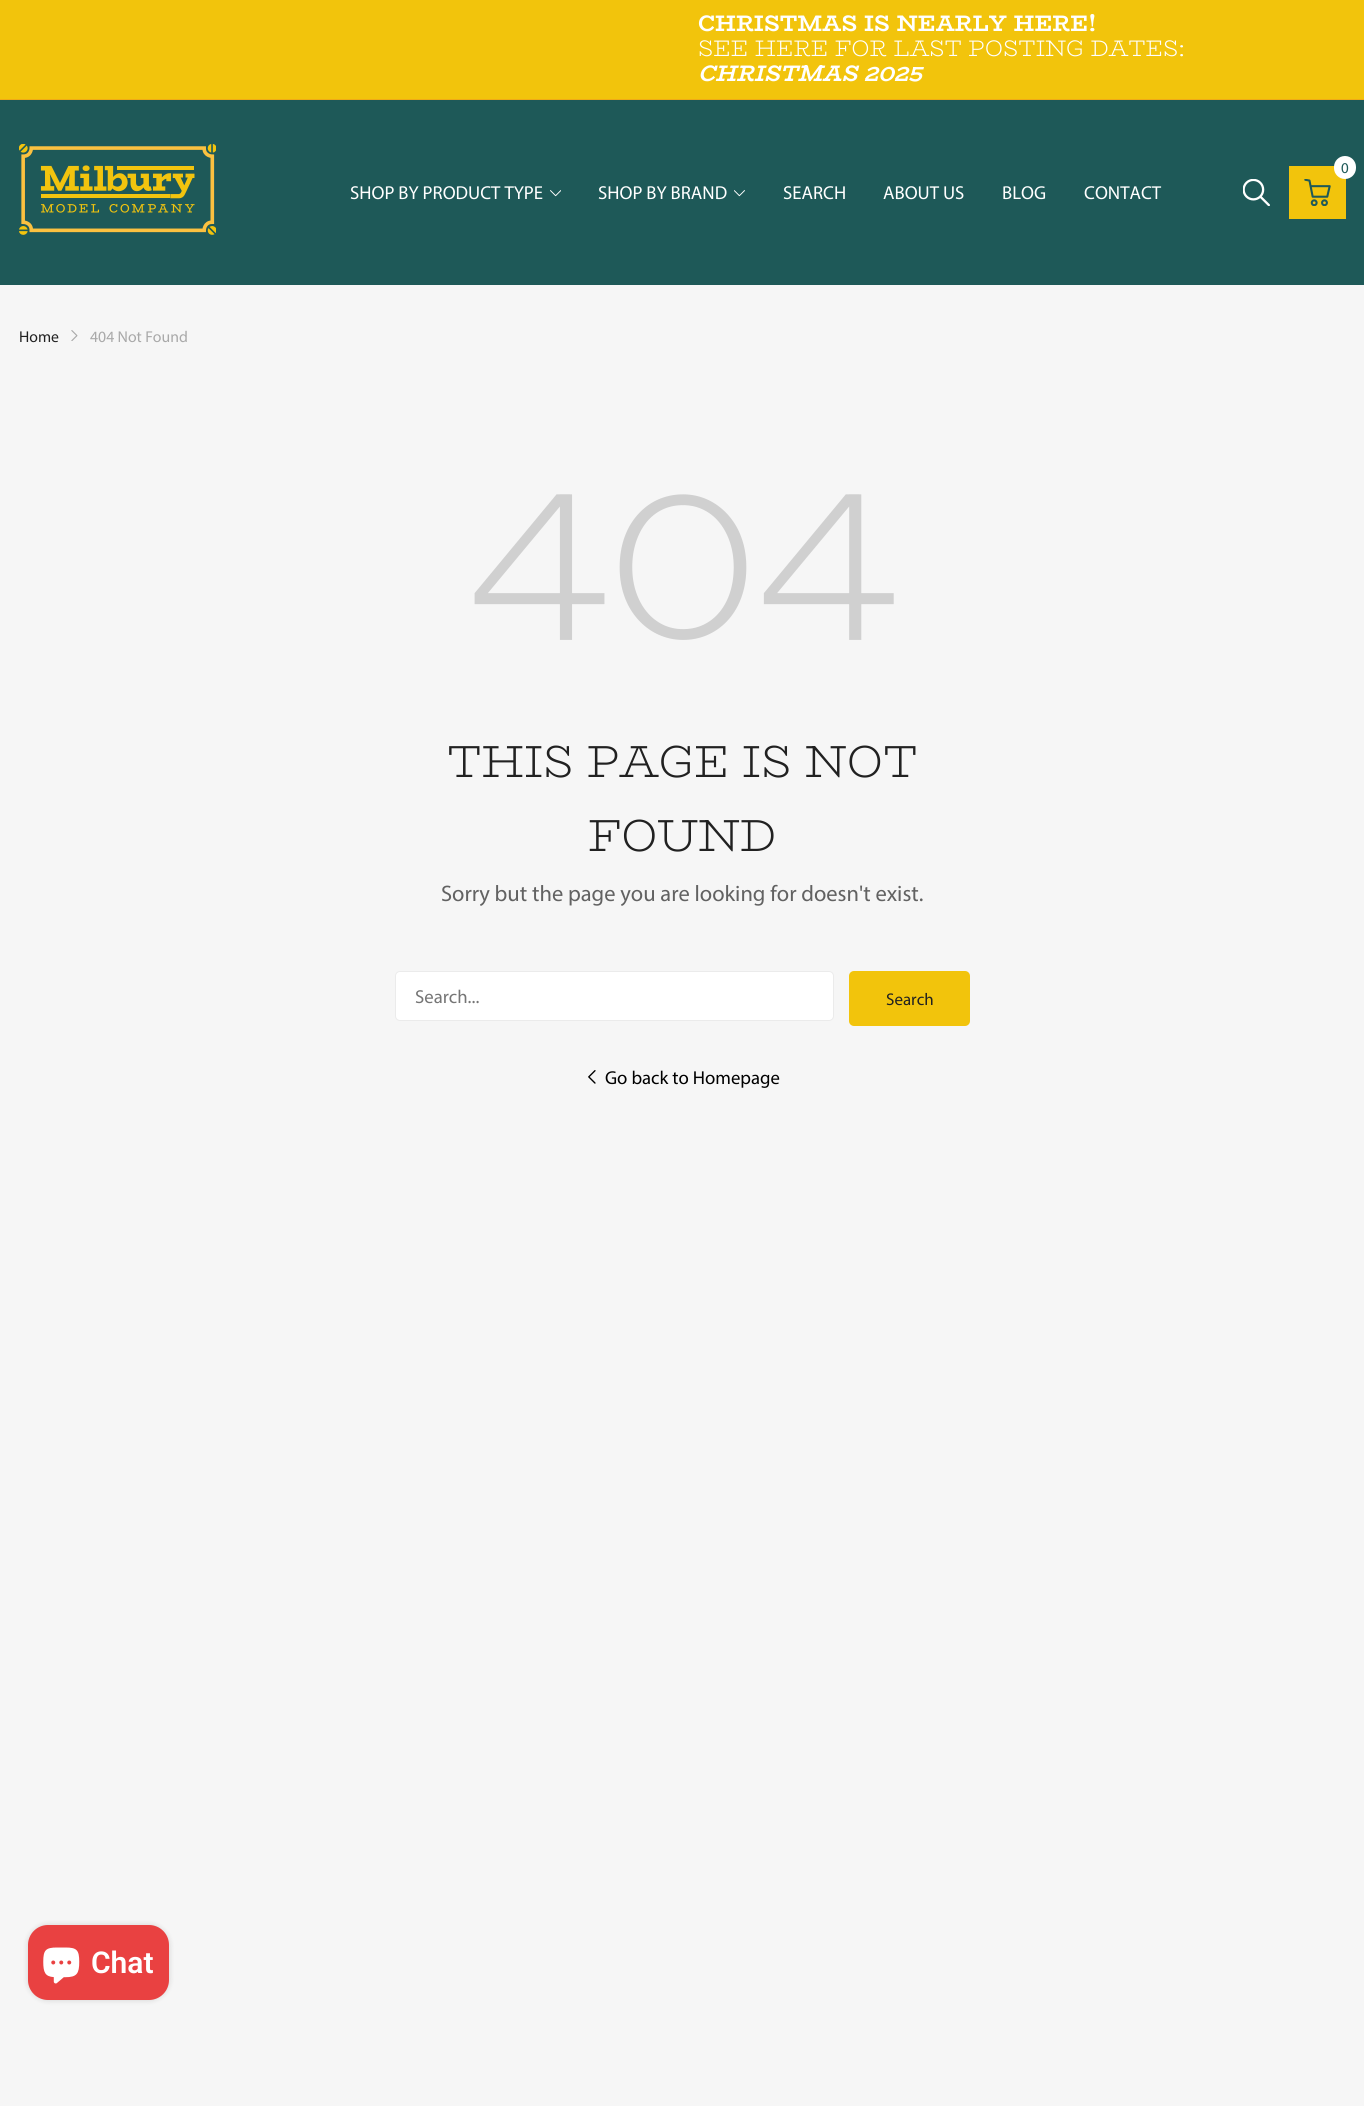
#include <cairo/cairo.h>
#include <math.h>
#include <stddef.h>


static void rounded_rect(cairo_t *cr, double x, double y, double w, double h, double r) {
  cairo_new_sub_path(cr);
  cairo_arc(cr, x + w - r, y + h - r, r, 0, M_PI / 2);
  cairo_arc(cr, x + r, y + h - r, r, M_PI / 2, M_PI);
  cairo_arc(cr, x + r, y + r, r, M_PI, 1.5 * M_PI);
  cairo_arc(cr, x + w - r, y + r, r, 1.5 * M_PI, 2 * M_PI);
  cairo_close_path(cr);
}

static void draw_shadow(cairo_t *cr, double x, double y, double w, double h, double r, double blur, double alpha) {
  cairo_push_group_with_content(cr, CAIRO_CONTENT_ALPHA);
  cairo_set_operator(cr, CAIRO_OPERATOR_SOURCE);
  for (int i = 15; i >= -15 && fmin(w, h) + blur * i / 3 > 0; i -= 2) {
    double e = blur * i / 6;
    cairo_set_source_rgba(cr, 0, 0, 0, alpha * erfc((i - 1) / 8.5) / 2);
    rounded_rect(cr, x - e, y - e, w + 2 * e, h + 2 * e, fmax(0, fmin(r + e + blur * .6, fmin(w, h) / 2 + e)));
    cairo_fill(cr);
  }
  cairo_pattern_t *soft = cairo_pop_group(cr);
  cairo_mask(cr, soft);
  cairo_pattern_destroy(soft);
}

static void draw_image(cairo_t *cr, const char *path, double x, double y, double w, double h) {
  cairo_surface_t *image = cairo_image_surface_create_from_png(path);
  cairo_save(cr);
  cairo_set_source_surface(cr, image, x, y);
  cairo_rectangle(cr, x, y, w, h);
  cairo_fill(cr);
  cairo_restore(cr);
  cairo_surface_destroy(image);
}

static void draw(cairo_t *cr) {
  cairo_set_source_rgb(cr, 246 / 255.0, 246 / 255.0, 246 / 255.0);
  cairo_paint(cr);
  cairo_set_source_rgb(cr, 242 / 255.0, 196 / 255.0, 12 / 255.0);
  cairo_rectangle(cr, 0, 0, 1364, 99);
  cairo_fill(cr);
  cairo_set_source_rgb(cr, 240 / 255.0, 170 / 255.0, 23 / 255.0);
  cairo_rectangle(cr, 0, 99, 1364, 1);
  cairo_fill(cr);
  cairo_set_source_rgb(cr, 30 / 255.0, 89 / 255.0, 88 / 255.0);
  cairo_rectangle(cr, 0, 100, 1364, 185);
  cairo_fill(cr);
  draw_image(cr, "images/1.png", 19, 144, 197, 91);
  cairo_set_source_rgb(cr, 242 / 255.0, 196 / 255.0, 12 / 255.0);
  cairo_rectangle(cr, 1289, 166, 57, 53);
  cairo_fill(cr);
  cairo_set_source_rgb(cr, 1, 1, 1);
  rounded_rect(cr, 1334, 156, 22, 23, 11);
  cairo_fill(cr);
  draw_image(cr, "images/2.png", 1304, 179, 27, 27);
  draw_image(cr, "images/3.png", 1243, 179, 27, 27);
  draw_image(cr, "images/4.png", 550, 190, 11, 7);
  draw_image(cr, "images/5.png", 734, 190, 11, 7);
  draw_image(cr, "images/6.png", 71, 330, 7, 11);
  rounded_rect(cr, 395.5, 971.5, 438, 49, 4.5);
  cairo_fill_preserve(cr);
  cairo_set_source_rgb(cr, 235 / 255.0, 235 / 255.0, 235 / 255.0);
  cairo_set_line_width(cr, 1);
  cairo_stroke(cr);
  cairo_set_source_rgb(cr, 242 / 255.0, 196 / 255.0, 12 / 255.0);
  rounded_rect(cr, 849, 971, 121, 55, 5);
  cairo_fill(cr);
  draw_image(cr, "images/7.png", 588, 1070, 8, 14);
  cairo_set_source_rgb(cr, 0, 0, 0);
  draw_shadow(cr, 28, 1925, 141, 75, 20, 3, 0.15);
  cairo_set_source_rgb(cr, 233 / 255.0, 65 / 255.0, 65 / 255.0);
  rounded_rect(cr, 28, 1925, 141, 75, 20);
  cairo_fill(cr);
  draw_image(cr, "images/8.png", 43, 1947, 37, 37);
  cairo_select_font_face(cr, "BioRhyme", CAIRO_FONT_SLANT_NORMAL, CAIRO_FONT_WEIGHT_BOLD);
  cairo_set_font_size(cr, 22.5);
  cairo_set_source_rgb(cr, 1, 1, 1);
  cairo_move_to(cr, 698, 31);
  cairo_show_text(cr, "CHRISTMAS IS NEARLY HERE!");
  cairo_select_font_face(cr, "BioRhyme Light", CAIRO_FONT_SLANT_NORMAL, CAIRO_FONT_WEIGHT_NORMAL);
  cairo_move_to(cr, 698, 56);
  cairo_show_text(cr, "SEE HERE FOR LAST POSTING DATES:");
  cairo_select_font_face(cr, "BioRhyme", CAIRO_FONT_SLANT_ITALIC, CAIRO_FONT_WEIGHT_BOLD);
  cairo_move_to(cr, 698, 81);
  cairo_show_text(cr, "CHRISTMAS 2025");
  cairo_select_font_face(cr, "Myriad", CAIRO_FONT_SLANT_NORMAL, CAIRO_FONT_WEIGHT_NORMAL);
  cairo_set_font_size(cr, 15);
  cairo_set_source_rgb(cr, 30 / 255.0, 89 / 255.0, 88 / 255.0);
  cairo_move_to(cr, 1341, 173);
  cairo_show_text(cr, "0");
  cairo_set_font_size(cr, 18.75);
  cairo_set_source_rgb(cr, 1, 1, 1);
  cairo_move_to(cr, 350, 199);
  cairo_show_text(cr, "SHOP BY PRODUCT TYPE");
  cairo_move_to(cr, 598, 199);
  cairo_show_text(cr, "SHOP BY BRAND");
  cairo_move_to(cr, 783, 199);
  cairo_show_text(cr, "SEARCH");
  cairo_move_to(cr, 883, 199);
  cairo_show_text(cr, "ABOUT US");
  cairo_move_to(cr, 1002, 199);
  cairo_show_text(cr, "BLOG");
  cairo_move_to(cr, 1084, 199);
  cairo_show_text(cr, "CONTACT");
  cairo_set_font_size(cr, 15.75);
  cairo_set_source_rgb(cr, 33 / 255.0, 33 / 255.0, 33 / 255.0);
  cairo_move_to(cr, 19, 342);
  cairo_show_text(cr, "Home");
  cairo_set_source_rgb(cr, 169 / 255.0, 169 / 255.0, 169 / 255.0);
  cairo_move_to(cr, 90, 342);
  cairo_show_text(cr, "404 Not Found");
  cairo_select_font_face(cr, "BioRhyme Light", CAIRO_FONT_SLANT_NORMAL, CAIRO_FONT_WEIGHT_NORMAL);
  cairo_set_font_size(cr, 225);
  cairo_set_source_rgb(cr, 208 / 255.0, 208 / 255.0, 208 / 255.0);
  cairo_move_to(cr, 469, 637);
  cairo_show_text(cr, "404");
  cairo_set_font_size(cr, 45);
  cairo_set_source_rgb(cr, 33 / 255.0, 33 / 255.0, 33 / 255.0);
  cairo_move_to(cr, 447, 777);
  cairo_show_text(cr, "THIS PAGE IS NOT");
  cairo_move_to(cr, 588, 851);
  cairo_show_text(cr, "FOUND");
  cairo_select_font_face(cr, "Myriad", CAIRO_FONT_SLANT_NORMAL, CAIRO_FONT_WEIGHT_NORMAL);
  cairo_set_font_size(cr, 22.5);
  cairo_set_source_rgb(cr, 98 / 255.0, 98 / 255.0, 98 / 255.0);
  cairo_move_to(cr, 441, 901);
  cairo_show_text(cr, "Sorry but the page you are looking for doesn't exist.");
  cairo_set_font_size(cr, 18.75);
  cairo_set_source_rgb(cr, 117 / 255.0, 117 / 255.0, 117 / 255.0);
  cairo_move_to(cr, 415, 1003);
  cairo_show_text(cr, "Search...");
  cairo_set_font_size(cr, 17);
  cairo_set_source_rgb(cr, 33 / 255.0, 33 / 255.0, 33 / 255.0);
  cairo_move_to(cr, 886, 1005);
  cairo_show_text(cr, "Search");
  cairo_set_font_size(cr, 18.75);
  cairo_set_source_rgb(cr, 0, 0, 0);
  cairo_move_to(cr, 605, 1084);
  cairo_show_text(cr, "Go back to Homepage");
  cairo_select_font_face(cr, "Roboto SemiBold", CAIRO_FONT_SLANT_NORMAL, CAIRO_FONT_WEIGHT_NORMAL);
  cairo_set_font_size(cr, 30);
  cairo_set_source_rgb(cr, 1, 1, 1);
  cairo_move_to(cr, 91, 1973);
  cairo_show_text(cr, "Chat");
}

int main(void) {
  cairo_surface_t *surface = cairo_image_surface_create(CAIRO_FORMAT_RGB24, 1364, 2106);
  cairo_t *cr = cairo_create(surface);
  cairo_font_options_t *options = cairo_font_options_create();
  cairo_font_options_set_hint_metrics(options, CAIRO_HINT_METRICS_OFF);
  cairo_font_options_set_hint_style(options, CAIRO_HINT_STYLE_NONE);
  cairo_set_font_options(cr, options);
  cairo_set_miter_limit(cr, 4);
  draw(cr);
  cairo_surface_write_to_png(surface, "out.png");
  cairo_font_options_destroy(options);
  cairo_destroy(cr);
  cairo_surface_destroy(surface);
  return 0;
}
